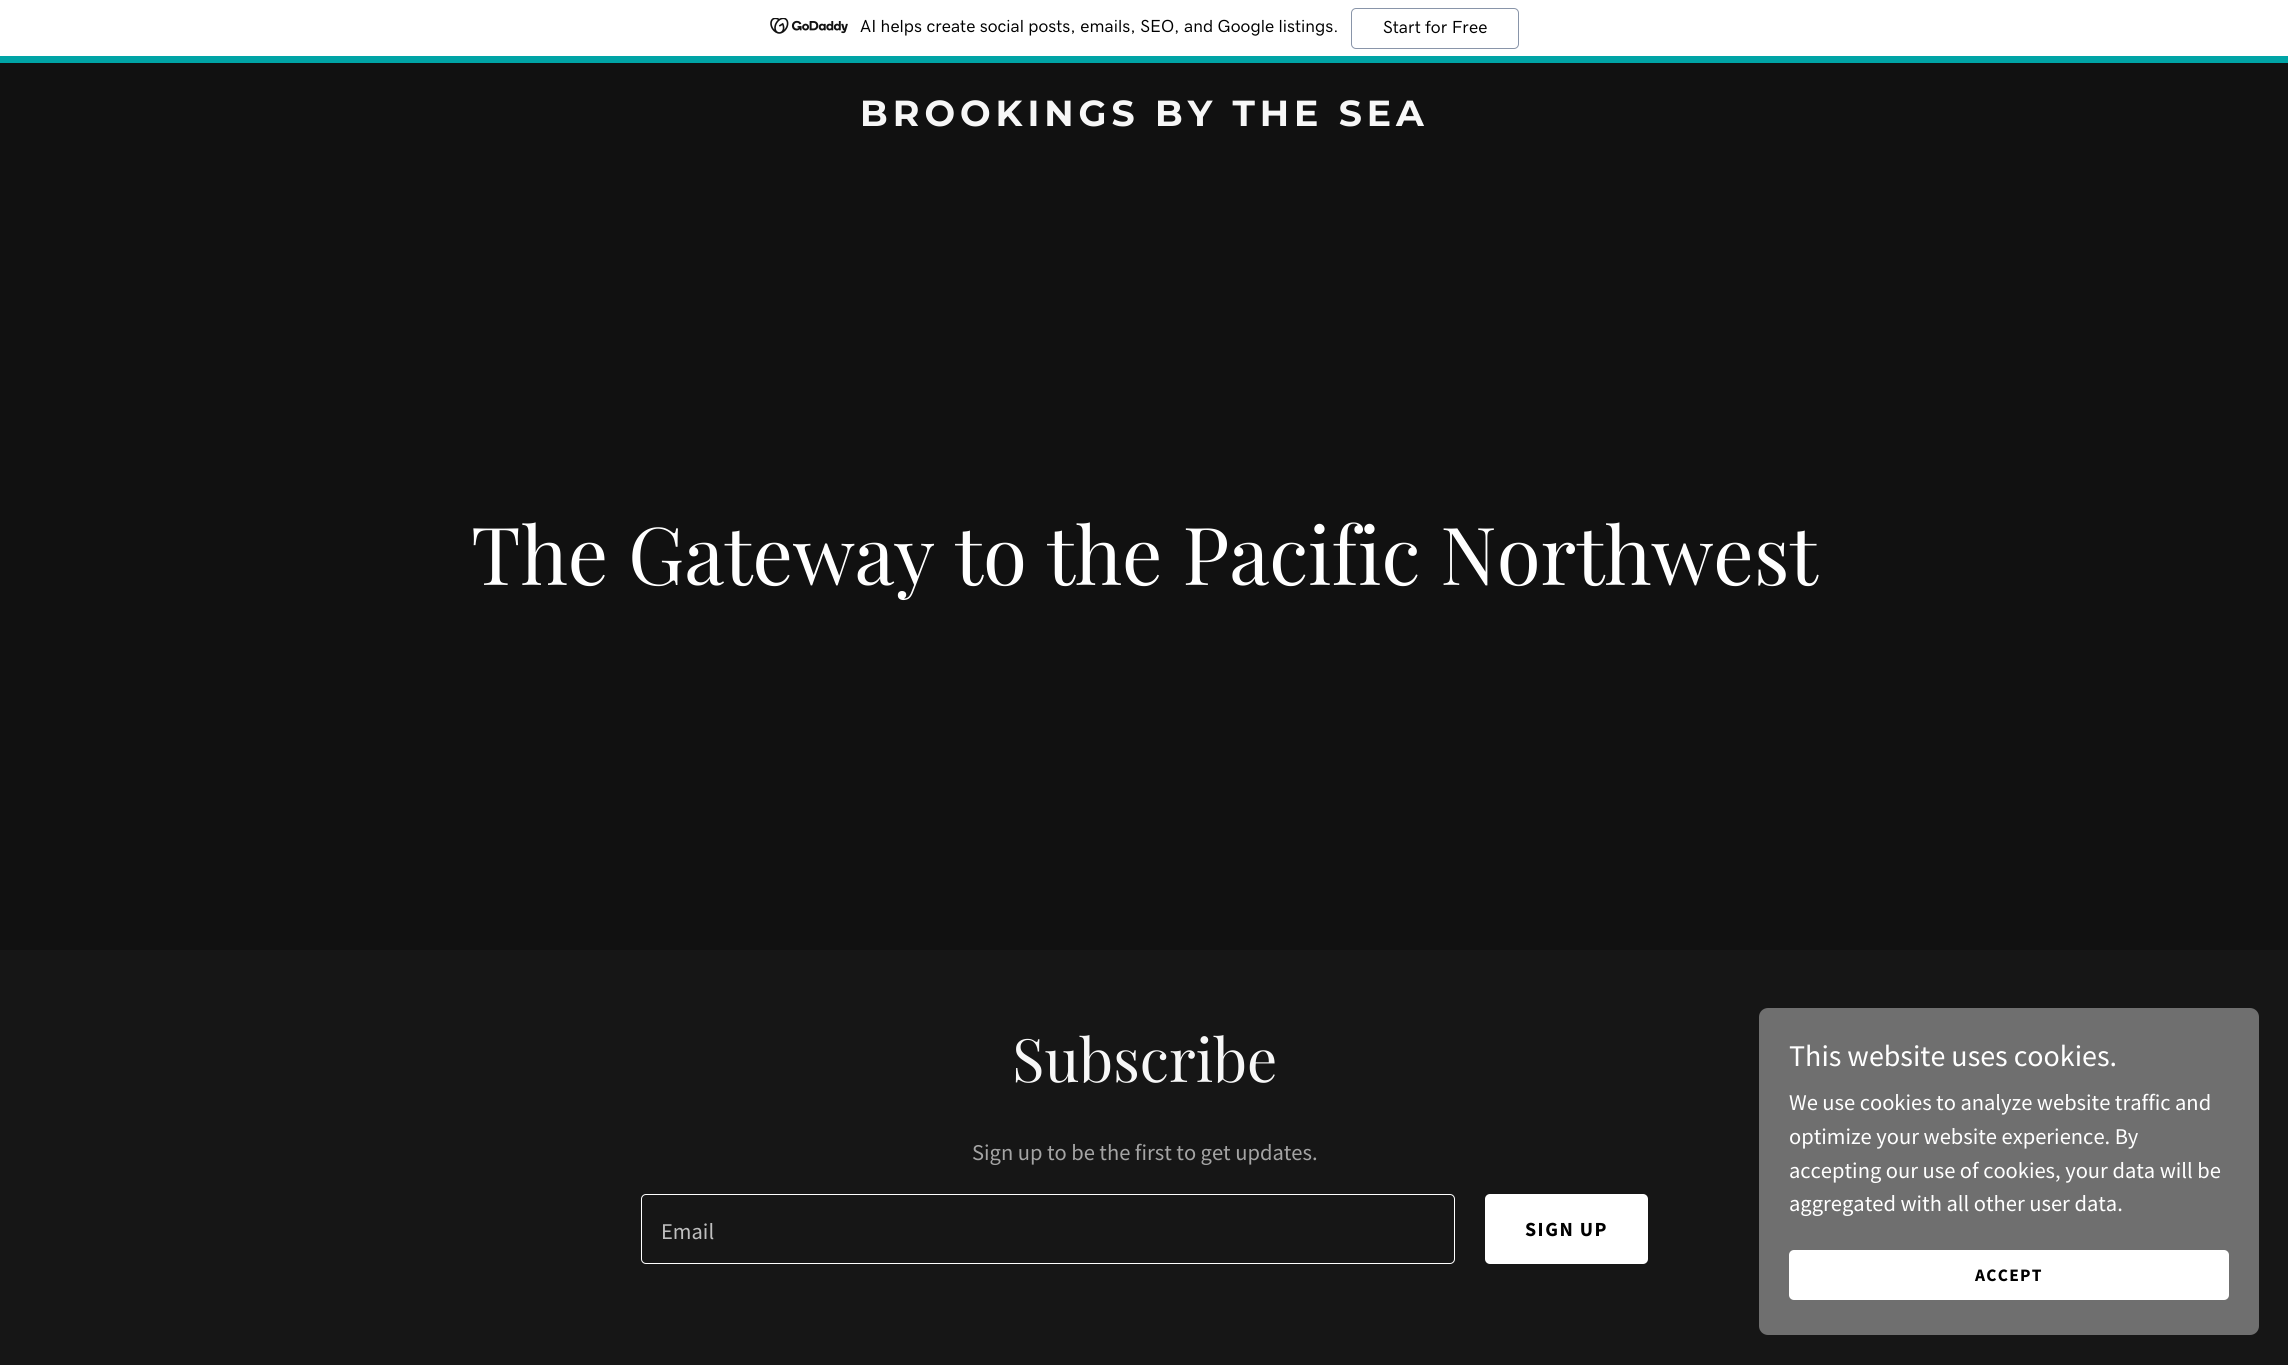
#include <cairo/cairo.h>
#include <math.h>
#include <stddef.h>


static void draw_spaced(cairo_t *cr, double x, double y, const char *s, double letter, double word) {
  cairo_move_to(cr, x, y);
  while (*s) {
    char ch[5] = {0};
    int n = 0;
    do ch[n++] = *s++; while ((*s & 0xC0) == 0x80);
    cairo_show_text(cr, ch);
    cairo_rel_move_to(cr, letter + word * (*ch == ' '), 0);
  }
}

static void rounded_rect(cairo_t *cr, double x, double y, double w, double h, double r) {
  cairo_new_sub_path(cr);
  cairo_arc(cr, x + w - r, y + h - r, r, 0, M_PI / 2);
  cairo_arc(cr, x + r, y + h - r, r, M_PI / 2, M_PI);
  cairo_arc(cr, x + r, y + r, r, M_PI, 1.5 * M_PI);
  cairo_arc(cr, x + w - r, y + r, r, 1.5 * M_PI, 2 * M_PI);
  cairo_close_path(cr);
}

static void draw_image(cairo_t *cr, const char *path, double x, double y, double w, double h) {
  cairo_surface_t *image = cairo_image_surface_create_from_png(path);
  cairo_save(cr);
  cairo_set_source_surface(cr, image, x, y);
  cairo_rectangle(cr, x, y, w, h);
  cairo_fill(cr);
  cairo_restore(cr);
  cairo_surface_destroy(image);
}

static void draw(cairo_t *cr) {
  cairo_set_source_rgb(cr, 22 / 255.0, 22 / 255.0, 22 / 255.0);
  cairo_paint(cr);
  cairo_set_source_rgb(cr, 1, 1, 1);
  cairo_rectangle(cr, 0, 0, 2288, 56);
  cairo_fill(cr);
  cairo_set_source_rgb(cr, 0, 164 / 255.0, 166 / 255.0);
  cairo_rectangle(cr, 0, 56, 2288, 7);
  cairo_fill(cr);
  draw_image(cr, "images/1.png", 770, 18, 78, 16);
  rounded_rect(cr, 1351.5, 8.5, 167, 40, 4.5);
  cairo_set_source_rgb(cr, 137 / 255.0, 149 / 255.0, 169 / 255.0);
  cairo_set_line_width(cr, 1);
  cairo_stroke(cr);
  cairo_set_source_rgb(cr, 17 / 255.0, 17 / 255.0, 17 / 255.0);
  cairo_rectangle(cr, 0, 63, 2288, 887);
  cairo_fill(cr);
  rounded_rect(cr, 641.5, 1194.5, 813, 69, 4.5);
  cairo_set_source_rgb(cr, 1, 1, 1);
  cairo_stroke(cr);
  rounded_rect(cr, 1485, 1194, 163, 70, 5);
  cairo_fill(cr);
  cairo_set_source_rgb(cr, 111 / 255.0, 111 / 255.0, 111 / 255.0);
  rounded_rect(cr, 1759, 1008, 500, 327, 9);
  cairo_fill(cr);
  cairo_set_source_rgb(cr, 1, 1, 1);
  rounded_rect(cr, 1789, 1250, 440, 50, 5);
  cairo_fill(cr);
  cairo_select_font_face(cr, "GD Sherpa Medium", CAIRO_FONT_SLANT_NORMAL, CAIRO_FONT_WEIGHT_NORMAL);
  cairo_set_font_size(cr, 17.5);
  cairo_set_source_rgb(cr, 0, 0, 0);
  cairo_move_to(cr, 860, 32);
  cairo_show_text(cr, "AI helps create social posts, emails, SEO, and Google listings.");
  cairo_move_to(cr, 1383, 33);
  cairo_show_text(cr, "Start for Free");
  cairo_select_font_face(cr, "Montserrat", CAIRO_FONT_SLANT_NORMAL, CAIRO_FONT_WEIGHT_BOLD);
  cairo_set_font_size(cr, 36.25);
  cairo_set_source_rgb(cr, 247 / 255.0, 247 / 255.0, 247 / 255.0);
  draw_spaced(cr, 860, 126, "BROOKINGS BY THE SEA", 5, 0);
  cairo_select_font_face(cr, "Playfair Display", CAIRO_FONT_SLANT_NORMAL, CAIRO_FONT_WEIGHT_NORMAL);
  cairo_set_font_size(cr, 80);
  cairo_set_source_rgb(cr, 1, 1, 1);
  cairo_move_to(cr, 471, 585);
  cairo_show_text(cr, "The Gateway to the Pacific Northwest");
  cairo_set_font_size(cr, 60);
  cairo_set_source_rgb(cr, 247 / 255.0, 247 / 255.0, 247 / 255.0);
  cairo_move_to(cr, 1012, 1082);
  cairo_show_text(cr, "Subscribe");
  cairo_select_font_face(cr, "Source Sans Pro", CAIRO_FONT_SLANT_NORMAL, CAIRO_FONT_WEIGHT_NORMAL);
  cairo_set_font_size(cr, 22.5);
  cairo_set_source_rgb(cr, 164 / 255.0, 164 / 255.0, 164 / 255.0);
  cairo_move_to(cr, 972, 1160);
  cairo_show_text(cr, "Sign up to be the first to get updates.");
  cairo_set_source_rgb(cr, 191 / 255.0, 191 / 255.0, 191 / 255.0);
  cairo_move_to(cr, 661, 1239);
  cairo_show_text(cr, "Email");
  cairo_select_font_face(cr, "Source Sans Pro", CAIRO_FONT_SLANT_NORMAL, CAIRO_FONT_WEIGHT_BOLD);
  cairo_set_font_size(cr, 20);
  cairo_set_source_rgb(cr, 0, 0, 0);
  draw_spaced(cr, 1525, 1236, "SIGN UP", 1.5, 0);
  cairo_select_font_face(cr, "Source Sans Pro", CAIRO_FONT_SLANT_NORMAL, CAIRO_FONT_WEIGHT_NORMAL);
  cairo_set_font_size(cr, 30);
  cairo_set_source_rgb(cr, 1, 1, 1);
  cairo_move_to(cr, 1789, 1066);
  cairo_show_text(cr, "This website uses cookies.");
  cairo_set_font_size(cr, 22.5);
  cairo_move_to(cr, 1789, 1110);
  cairo_show_text(cr, "We use cookies to analyze website traffic and");
  cairo_move_to(cr, 1789, 1144);
  cairo_show_text(cr, "optimize your website experience. By");
  cairo_move_to(cr, 1789, 1178);
  cairo_show_text(cr, "accepting our use of cookies, your data will be");
  cairo_move_to(cr, 1789, 1211);
  cairo_show_text(cr, "aggregated with all other user data.");
  cairo_select_font_face(cr, "Source Sans Pro", CAIRO_FONT_SLANT_NORMAL, CAIRO_FONT_WEIGHT_BOLD);
  cairo_set_font_size(cr, 17.5);
  cairo_set_source_rgb(cr, 0, 0, 0);
  draw_spaced(cr, 1975, 1281, "ACCEPT", 1.25, 0);
}

int main(void) {
  cairo_surface_t *surface = cairo_image_surface_create(CAIRO_FORMAT_RGB24, 2288, 1365);
  cairo_t *cr = cairo_create(surface);
  cairo_font_options_t *options = cairo_font_options_create();
  cairo_font_options_set_hint_metrics(options, CAIRO_HINT_METRICS_OFF);
  cairo_font_options_set_hint_style(options, CAIRO_HINT_STYLE_NONE);
  cairo_set_font_options(cr, options);
  cairo_set_miter_limit(cr, 4);
  draw(cr);
  cairo_surface_write_to_png(surface, "out.png");
  cairo_font_options_destroy(options);
  cairo_destroy(cr);
  cairo_surface_destroy(surface);
  return 0;
}
